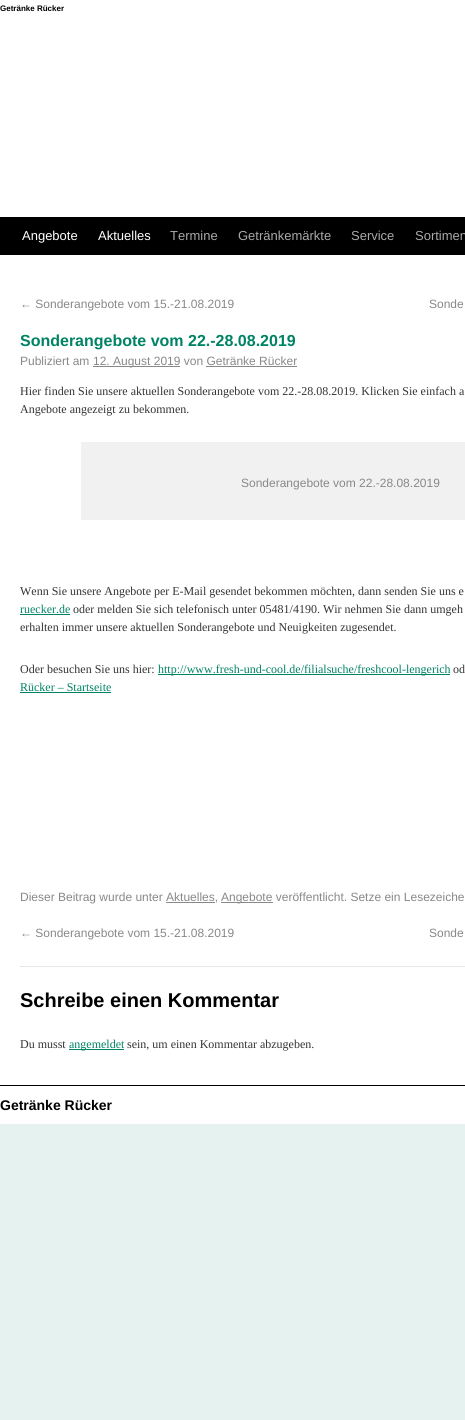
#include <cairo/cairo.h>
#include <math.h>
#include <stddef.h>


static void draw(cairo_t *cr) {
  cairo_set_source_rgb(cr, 229 / 255.0, 242 / 255.0, 239 / 255.0);
  cairo_paint(cr);
  cairo_set_source_rgb(cr, 1, 1, 1);
  cairo_rectangle(cr, 0, 0, 465, 1124);
  cairo_fill(cr);
  cairo_set_source_rgb(cr, 0, 0, 0);
  cairo_rectangle(cr, 0, 217, 465, 38);
  cairo_fill(cr);
  cairo_set_source_rgb(cr, 136 / 255.0, 136 / 255.0, 136 / 255.0);
  cairo_rectangle(cr, 93, 366, 87, 1);
  cairo_fill(cr);
  cairo_rectangle(cr, 206, 366, 91, 1);
  cairo_fill(cr);
  cairo_set_source_rgb(cr, 241 / 255.0, 241 / 255.0, 241 / 255.0);
  cairo_rectangle(cr, 81, 442, 384, 78);
  cairo_fill(cr);
  cairo_set_source_rgb(cr, 0, 131 / 255.0, 100 / 255.0);
  cairo_rectangle(cr, 20, 614, 50, 1);
  cairo_fill(cr);
  cairo_rectangle(cr, 158, 674, 292, 1);
  cairo_fill(cr);
  cairo_rectangle(cr, 20, 692, 91, 1);
  cairo_fill(cr);
  cairo_set_source_rgb(cr, 136 / 255.0, 136 / 255.0, 136 / 255.0);
  cairo_rectangle(cr, 221, 902, 52, 1);
  cairo_fill(cr);
  cairo_rectangle(cr, 166, 902, 49, 1);
  cairo_fill(cr);
  cairo_set_source_rgb(cr, 231 / 255.0, 231 / 255.0, 231 / 255.0);
  cairo_rectangle(cr, 20, 966, 445, 1);
  cairo_fill(cr);
  cairo_set_source_rgb(cr, 0, 131 / 255.0, 100 / 255.0);
  cairo_rectangle(cr, 69, 1049, 55, 1);
  cairo_fill(cr);
  cairo_set_source_rgb(cr, 0, 0, 0);
  cairo_rectangle(cr, 0, 1085, 465, 1);
  cairo_fill(cr);
  cairo_select_font_face(cr, "Liberation Sans", CAIRO_FONT_SLANT_NORMAL, CAIRO_FONT_WEIGHT_BOLD);
  cairo_set_font_size(cr, 8);
  cairo_move_to(cr, 0, 11);
  cairo_show_text(cr, "Getränke Rücker");
  cairo_select_font_face(cr, "Liberation Sans", CAIRO_FONT_SLANT_NORMAL, CAIRO_FONT_WEIGHT_NORMAL);
  cairo_set_font_size(cr, 13);
  cairo_set_source_rgb(cr, 1, 1, 1);
  cairo_move_to(cr, 22, 240);
  cairo_show_text(cr, "Angebote");
  cairo_move_to(cr, 98, 240);
  cairo_show_text(cr, "Aktuelles");
  cairo_set_source_rgb(cr, 170 / 255.0, 170 / 255.0, 170 / 255.0);
  cairo_move_to(cr, 170, 240);
  cairo_show_text(cr, "Termine");
  cairo_move_to(cr, 238, 240);
  cairo_show_text(cr, "Getränkemärkte");
  cairo_move_to(cr, 351, 240);
  cairo_show_text(cr, "Service");
  cairo_move_to(cr, 415, 240);
  cairo_show_text(cr, "Sortimen");
  cairo_set_font_size(cr, 12);
  cairo_set_source_rgb(cr, 136 / 255.0, 136 / 255.0, 136 / 255.0);
  cairo_move_to(cr, 20, 308);
  cairo_show_text(cr, "← Sonderangebote vom 15.-21.08.2019");
  cairo_move_to(cr, 429, 308);
  cairo_show_text(cr, "Sonde");
  cairo_select_font_face(cr, "Liberation Sans", CAIRO_FONT_SLANT_NORMAL, CAIRO_FONT_WEIGHT_BOLD);
  cairo_set_font_size(cr, 16);
  cairo_set_source_rgb(cr, 0, 131 / 255.0, 100 / 255.0);
  cairo_move_to(cr, 20, 346);
  cairo_show_text(cr, "Sonderangebote vom 22.-28.08.2019");
  cairo_select_font_face(cr, "Liberation Sans", CAIRO_FONT_SLANT_NORMAL, CAIRO_FONT_WEIGHT_NORMAL);
  cairo_set_font_size(cr, 12);
  cairo_set_source_rgb(cr, 136 / 255.0, 136 / 255.0, 136 / 255.0);
  cairo_move_to(cr, 20, 365);
  cairo_show_text(cr, "Publiziert am");
  cairo_move_to(cr, 93, 365);
  cairo_show_text(cr, "12. August 2019 von Getränke Rücker");
  cairo_select_font_face(cr, "Liberation Serif", CAIRO_FONT_SLANT_NORMAL, CAIRO_FONT_WEIGHT_NORMAL);
  cairo_set_source_rgb(cr, 51 / 255.0, 51 / 255.0, 51 / 255.0);
  cairo_move_to(cr, 20, 395);
  cairo_show_text(cr, "Hier finden Sie unsere aktuellen Sonderangebote vom 22.-28.08.2019. Klicken Sie einfach a");
  cairo_move_to(cr, 20, 413);
  cairo_show_text(cr, "Angebote angezeigt zu bekommen.");
  cairo_select_font_face(cr, "Liberation Sans", CAIRO_FONT_SLANT_NORMAL, CAIRO_FONT_WEIGHT_NORMAL);
  cairo_set_source_rgb(cr, 136 / 255.0, 136 / 255.0, 136 / 255.0);
  cairo_move_to(cr, 241, 487);
  cairo_show_text(cr, "Sonderangebote vom 22.-28.08.2019");
  cairo_select_font_face(cr, "Liberation Serif", CAIRO_FONT_SLANT_NORMAL, CAIRO_FONT_WEIGHT_NORMAL);
  cairo_set_source_rgb(cr, 51 / 255.0, 51 / 255.0, 51 / 255.0);
  cairo_move_to(cr, 20, 595);
  cairo_show_text(cr, "Wenn Sie unsere Angebote per E-Mail gesendet bekommen möchten, dann senden Sie uns e");
  cairo_set_source_rgb(cr, 0, 131 / 255.0, 100 / 255.0);
  cairo_move_to(cr, 20, 613);
  cairo_show_text(cr, "ruecker.de");
  cairo_set_source_rgb(cr, 51 / 255.0, 51 / 255.0, 51 / 255.0);
  cairo_move_to(cr, 73, 613);
  cairo_show_text(cr, "oder melden Sie sich telefonisch unter 05481/4190. Wir nehmen Sie dann umgeh");
  cairo_move_to(cr, 20, 631);
  cairo_show_text(cr, "erhalten immer unsere aktuellen Sonderangebote und Neuigkeiten zugesendet.");
  cairo_move_to(cr, 20, 673);
  cairo_show_text(cr, "Oder besuchen Sie uns hier:");
  cairo_set_source_rgb(cr, 0, 131 / 255.0, 100 / 255.0);
  cairo_move_to(cr, 158, 673);
  cairo_show_text(cr, "http://www.fresh-und-cool.de/filialsuche/freshcool-lengerich");
  cairo_set_source_rgb(cr, 51 / 255.0, 51 / 255.0, 51 / 255.0);
  cairo_move_to(cr, 453, 673);
  cairo_show_text(cr, "od");
  cairo_set_source_rgb(cr, 0, 131 / 255.0, 100 / 255.0);
  cairo_move_to(cr, 20, 691);
  cairo_show_text(cr, "Rücker – Startseite");
  cairo_select_font_face(cr, "Liberation Sans", CAIRO_FONT_SLANT_NORMAL, CAIRO_FONT_WEIGHT_NORMAL);
  cairo_set_source_rgb(cr, 136 / 255.0, 136 / 255.0, 136 / 255.0);
  cairo_move_to(cr, 20, 901);
  cairo_show_text(cr, "Dieser Beitrag wurde unter Aktuelles,");
  cairo_move_to(cr, 221, 901);
  cairo_show_text(cr, "Angebote veröffentlicht. Setze ein Lesezeiche");
  cairo_move_to(cr, 20, 937);
  cairo_show_text(cr, "← Sonderangebote vom 15.-21.08.2019");
  cairo_move_to(cr, 429, 937);
  cairo_show_text(cr, "Sonde");
  cairo_select_font_face(cr, "Liberation Sans", CAIRO_FONT_SLANT_NORMAL, CAIRO_FONT_WEIGHT_BOLD);
  cairo_set_font_size(cr, 20);
  cairo_set_source_rgb(cr, 0, 0, 0);
  cairo_move_to(cr, 20, 1007);
  cairo_show_text(cr, "Schreibe einen Kommentar");
  cairo_select_font_face(cr, "Liberation Serif", CAIRO_FONT_SLANT_NORMAL, CAIRO_FONT_WEIGHT_NORMAL);
  cairo_set_font_size(cr, 12);
  cairo_set_source_rgb(cr, 51 / 255.0, 51 / 255.0, 51 / 255.0);
  cairo_move_to(cr, 20, 1048);
  cairo_show_text(cr, "Du musst");
  cairo_set_source_rgb(cr, 0, 131 / 255.0, 100 / 255.0);
  cairo_move_to(cr, 69, 1048);
  cairo_show_text(cr, "angemeldet");
  cairo_set_source_rgb(cr, 51 / 255.0, 51 / 255.0, 51 / 255.0);
  cairo_move_to(cr, 127, 1048);
  cairo_show_text(cr, "sein, um einen Kommentar abzugeben.");
  cairo_select_font_face(cr, "Liberation Sans", CAIRO_FONT_SLANT_NORMAL, CAIRO_FONT_WEIGHT_BOLD);
  cairo_set_font_size(cr, 14);
  cairo_set_source_rgb(cr, 0, 0, 0);
  cairo_move_to(cr, 0, 1110);
  cairo_show_text(cr, "Getränke Rücker");
}

int main(void) {
  cairo_surface_t *surface = cairo_image_surface_create(CAIRO_FORMAT_RGB24, 465, 1420);
  cairo_t *cr = cairo_create(surface);
  cairo_font_options_t *options = cairo_font_options_create();
  cairo_font_options_set_hint_metrics(options, CAIRO_HINT_METRICS_OFF);
  cairo_font_options_set_hint_style(options, CAIRO_HINT_STYLE_NONE);
  cairo_set_font_options(cr, options);
  cairo_set_miter_limit(cr, 4);
  draw(cr);
  cairo_surface_write_to_png(surface, "out.png");
  cairo_font_options_destroy(options);
  cairo_destroy(cr);
  cairo_surface_destroy(surface);
  return 0;
}
